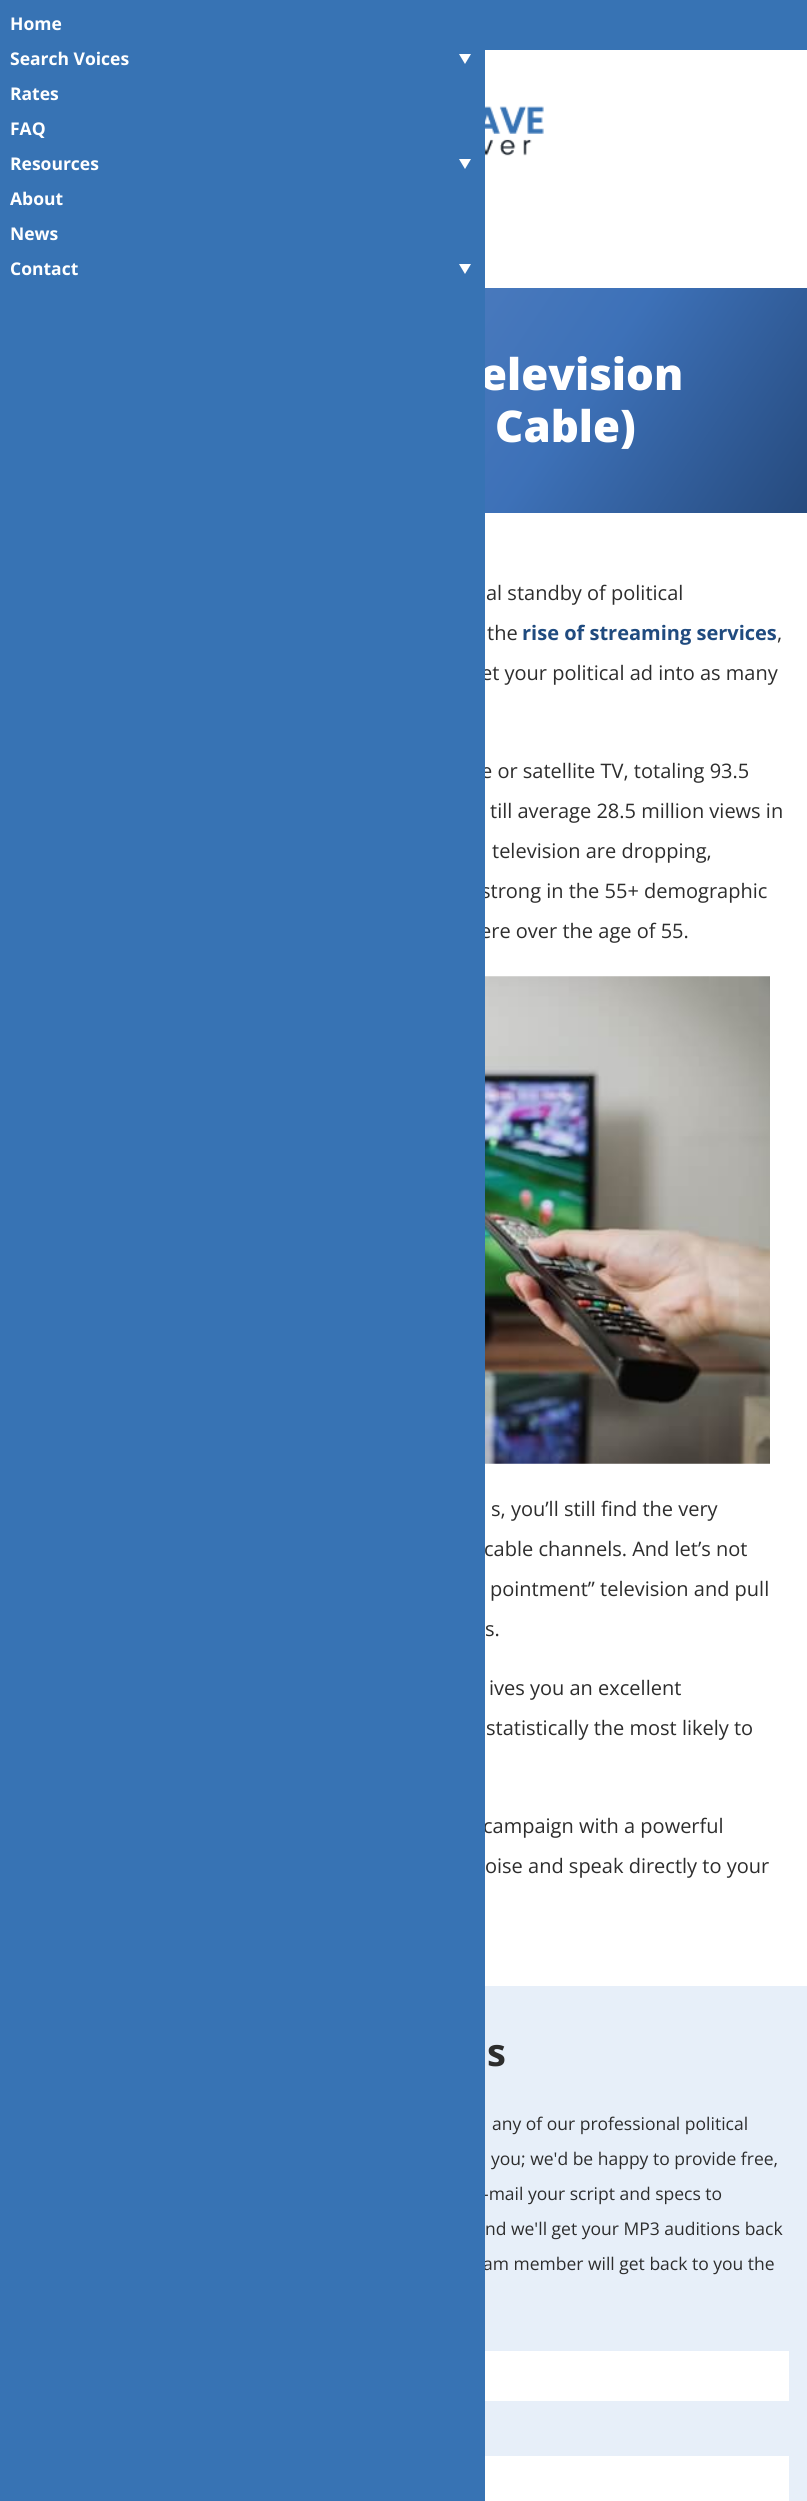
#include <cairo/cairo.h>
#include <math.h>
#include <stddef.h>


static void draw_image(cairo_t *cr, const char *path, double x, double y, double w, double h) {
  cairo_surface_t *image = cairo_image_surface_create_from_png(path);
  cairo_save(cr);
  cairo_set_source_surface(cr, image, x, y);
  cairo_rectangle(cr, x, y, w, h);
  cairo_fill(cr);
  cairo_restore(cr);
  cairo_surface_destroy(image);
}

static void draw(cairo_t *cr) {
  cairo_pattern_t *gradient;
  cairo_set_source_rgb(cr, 1, 1, 1);
  cairo_paint(cr);
  cairo_set_source_rgb(cr, 55 / 255.0, 115 / 255.0, 180 / 255.0);
  cairo_rectangle(cr, 485, 0, 322, 50);
  cairo_fill(cr);
  draw_image(cr, "images/1.png", 485, 106, 59, 50);
  gradient = cairo_pattern_create_linear(75, 177, 733, 623);
  cairo_pattern_add_color_stop_rgba(gradient, 0, 120 / 255.0, 199 / 255.0, 229 / 255.0, 1);
  cairo_pattern_add_color_stop_rgba(gradient, 0.32, 84 / 255.0, 129 / 255.0, 193 / 255.0, 1);
  cairo_pattern_add_color_stop_rgba(gradient, 0.68, 61 / 255.0, 113 / 255.0, 184 / 255.0, 1);
  cairo_pattern_add_color_stop_rgba(gradient, 1, 38 / 255.0, 74 / 255.0, 125 / 255.0, 1);
  cairo_set_source(cr, gradient);
  cairo_pattern_destroy(gradient);
  cairo_rectangle(cr, 485, 288, 322, 225);
  cairo_fill(cr);
  draw_image(cr, "images/2.png", 485, 976, 285, 488);
  cairo_set_source_rgb(cr, 231 / 255.0, 239 / 255.0, 249 / 255.0);
  cairo_rectangle(cr, 485, 1986, 322, 515);
  cairo_fill(cr);
  cairo_set_source_rgb(cr, 1, 1, 1);
  cairo_rectangle(cr, 485, 2351, 304, 50);
  cairo_fill(cr);
  cairo_rectangle(cr, 485, 2456, 304, 45);
  cairo_fill(cr);
  cairo_select_font_face(cr, "Open Sans ExtraBold", CAIRO_FONT_SLANT_NORMAL, CAIRO_FONT_WEIGHT_NORMAL);
  cairo_set_font_size(cr, 43.75);
  cairo_move_to(cr, 480, 390);
  cairo_show_text(cr, "elevision");
  cairo_move_to(cr, 495, 442);
  cairo_show_text(cr, "Cable)");
  cairo_select_font_face(cr, "Open Sans", CAIRO_FONT_SLANT_NORMAL, CAIRO_FONT_WEIGHT_NORMAL);
  cairo_set_font_size(cr, 20);
  cairo_set_source_rgb(cr, 45 / 255.0, 45 / 255.0, 45 / 255.0);
  cairo_move_to(cr, 486, 600);
  cairo_show_text(cr, "al standby of political");
  cairo_move_to(cr, 487, 640);
  cairo_show_text(cr, "the");
  cairo_select_font_face(cr, "Open Sans", CAIRO_FONT_SLANT_NORMAL, CAIRO_FONT_WEIGHT_BOLD);
  cairo_set_source_rgb(cr, 32 / 255.0, 75 / 255.0, 127 / 255.0);
  cairo_move_to(cr, 522, 640);
  cairo_show_text(cr, "rise of streaming services");
  cairo_select_font_face(cr, "Open Sans", CAIRO_FONT_SLANT_NORMAL, CAIRO_FONT_WEIGHT_NORMAL);
  cairo_set_source_rgb(cr, 45 / 255.0, 45 / 255.0, 45 / 255.0);
  cairo_move_to(cr, 777, 640);
  cairo_show_text(cr, ",");
  cairo_move_to(cr, 481, 680);
  cairo_show_text(cr, "et your political ad into as many");
  cairo_move_to(cr, 481, 778);
  cairo_show_text(cr, "e or satellite TV, totaling 93.5");
  cairo_move_to(cr, 490, 818);
  cairo_show_text(cr, "till average 28.5 million views in");
  cairo_move_to(cr, 492, 858);
  cairo_show_text(cr, "television are dropping,");
  cairo_move_to(cr, 481, 898);
  cairo_show_text(cr, "strong in the 55+ demographic");
  cairo_move_to(cr, 480, 938);
  cairo_show_text(cr, "ere over the age of 55.");
  cairo_move_to(cr, 491, 1516);
  cairo_show_text(cr, "s, you’ll still find the very");
  cairo_move_to(cr, 484, 1556);
  cairo_show_text(cr, "cable channels. And let’s not");
  cairo_move_to(cr, 490, 1596);
  cairo_show_text(cr, "pointment” television and pull");
  cairo_move_to(cr, 485, 1636);
  cairo_show_text(cr, "s.");
  cairo_move_to(cr, 489, 1695);
  cairo_show_text(cr, "ives you an excellent");
  cairo_move_to(cr, 486, 1735);
  cairo_show_text(cr, "statistically the most likely to");
  cairo_move_to(cr, 483, 1833);
  cairo_show_text(cr, "campaign with a powerful");
  cairo_move_to(cr, 485, 1873);
  cairo_show_text(cr, "oise and speak directly to your");
  cairo_select_font_face(cr, "Open Sans", CAIRO_FONT_SLANT_NORMAL, CAIRO_FONT_WEIGHT_BOLD);
  cairo_set_font_size(cr, 38);
  cairo_move_to(cr, 487, 2066);
  cairo_show_text(cr, "s");
  cairo_select_font_face(cr, "Open Sans", CAIRO_FONT_SLANT_NORMAL, CAIRO_FONT_WEIGHT_NORMAL);
  cairo_set_font_size(cr, 17.5);
  cairo_move_to(cr, 492, 2130);
  cairo_show_text(cr, "any of our professional political");
  cairo_move_to(cr, 491, 2165);
  cairo_show_text(cr, "you; we'd be happy to provide free,");
  cairo_move_to(cr, 483, 2200);
  cairo_show_text(cr, "-mail your script and specs to");
  cairo_move_to(cr, 485, 2235);
  cairo_show_text(cr, "nd we'll get your MP3 auditions back");
  cairo_move_to(cr, 483, 2270);
  cairo_show_text(cr, "am member will get back to you the");
  cairo_set_source_rgb(cr, 55 / 255.0, 115 / 255.0, 180 / 255.0);
  cairo_rectangle(cr, 0, 0, 485, 2501);
  cairo_fill(cr);
  cairo_set_source_rgb(cr, 1, 1, 1);
  cairo_new_path(cr);
  cairo_move_to(cr, 459, 264);
  cairo_line_to(cr, 471, 264);
  cairo_line_to(cr, 465, 274);
  cairo_close_path(cr);
  cairo_fill(cr);
  cairo_new_path(cr);
  cairo_move_to(cr, 459, 159);
  cairo_line_to(cr, 471, 159);
  cairo_line_to(cr, 465, 169);
  cairo_close_path(cr);
  cairo_fill(cr);
  cairo_new_path(cr);
  cairo_move_to(cr, 459, 54);
  cairo_line_to(cr, 471, 54);
  cairo_line_to(cr, 465, 64);
  cairo_close_path(cr);
  cairo_fill(cr);
  cairo_select_font_face(cr, "Open Sans", CAIRO_FONT_SLANT_NORMAL, CAIRO_FONT_WEIGHT_BOLD);
  cairo_move_to(cr, 10, 275);
  cairo_show_text(cr, "Contact");
  cairo_move_to(cr, 10, 240);
  cairo_show_text(cr, "News");
  cairo_move_to(cr, 10, 205);
  cairo_show_text(cr, "About");
  cairo_move_to(cr, 10, 170);
  cairo_show_text(cr, "Resources");
  cairo_move_to(cr, 10, 135);
  cairo_show_text(cr, "FAQ");
  cairo_move_to(cr, 10, 100);
  cairo_show_text(cr, "Rates");
  cairo_move_to(cr, 10, 65);
  cairo_show_text(cr, "Search Voices");
  cairo_move_to(cr, 10, 30);
  cairo_show_text(cr, "Home");
}

int main(void) {
  cairo_surface_t *surface = cairo_image_surface_create(CAIRO_FORMAT_RGB24, 807, 2501);
  cairo_t *cr = cairo_create(surface);
  cairo_font_options_t *options = cairo_font_options_create();
  cairo_font_options_set_hint_metrics(options, CAIRO_HINT_METRICS_OFF);
  cairo_font_options_set_hint_style(options, CAIRO_HINT_STYLE_NONE);
  cairo_set_font_options(cr, options);
  cairo_set_miter_limit(cr, 4);
  draw(cr);
  cairo_surface_write_to_png(surface, "out.png");
  cairo_font_options_destroy(options);
  cairo_destroy(cr);
  cairo_surface_destroy(surface);
  return 0;
}
